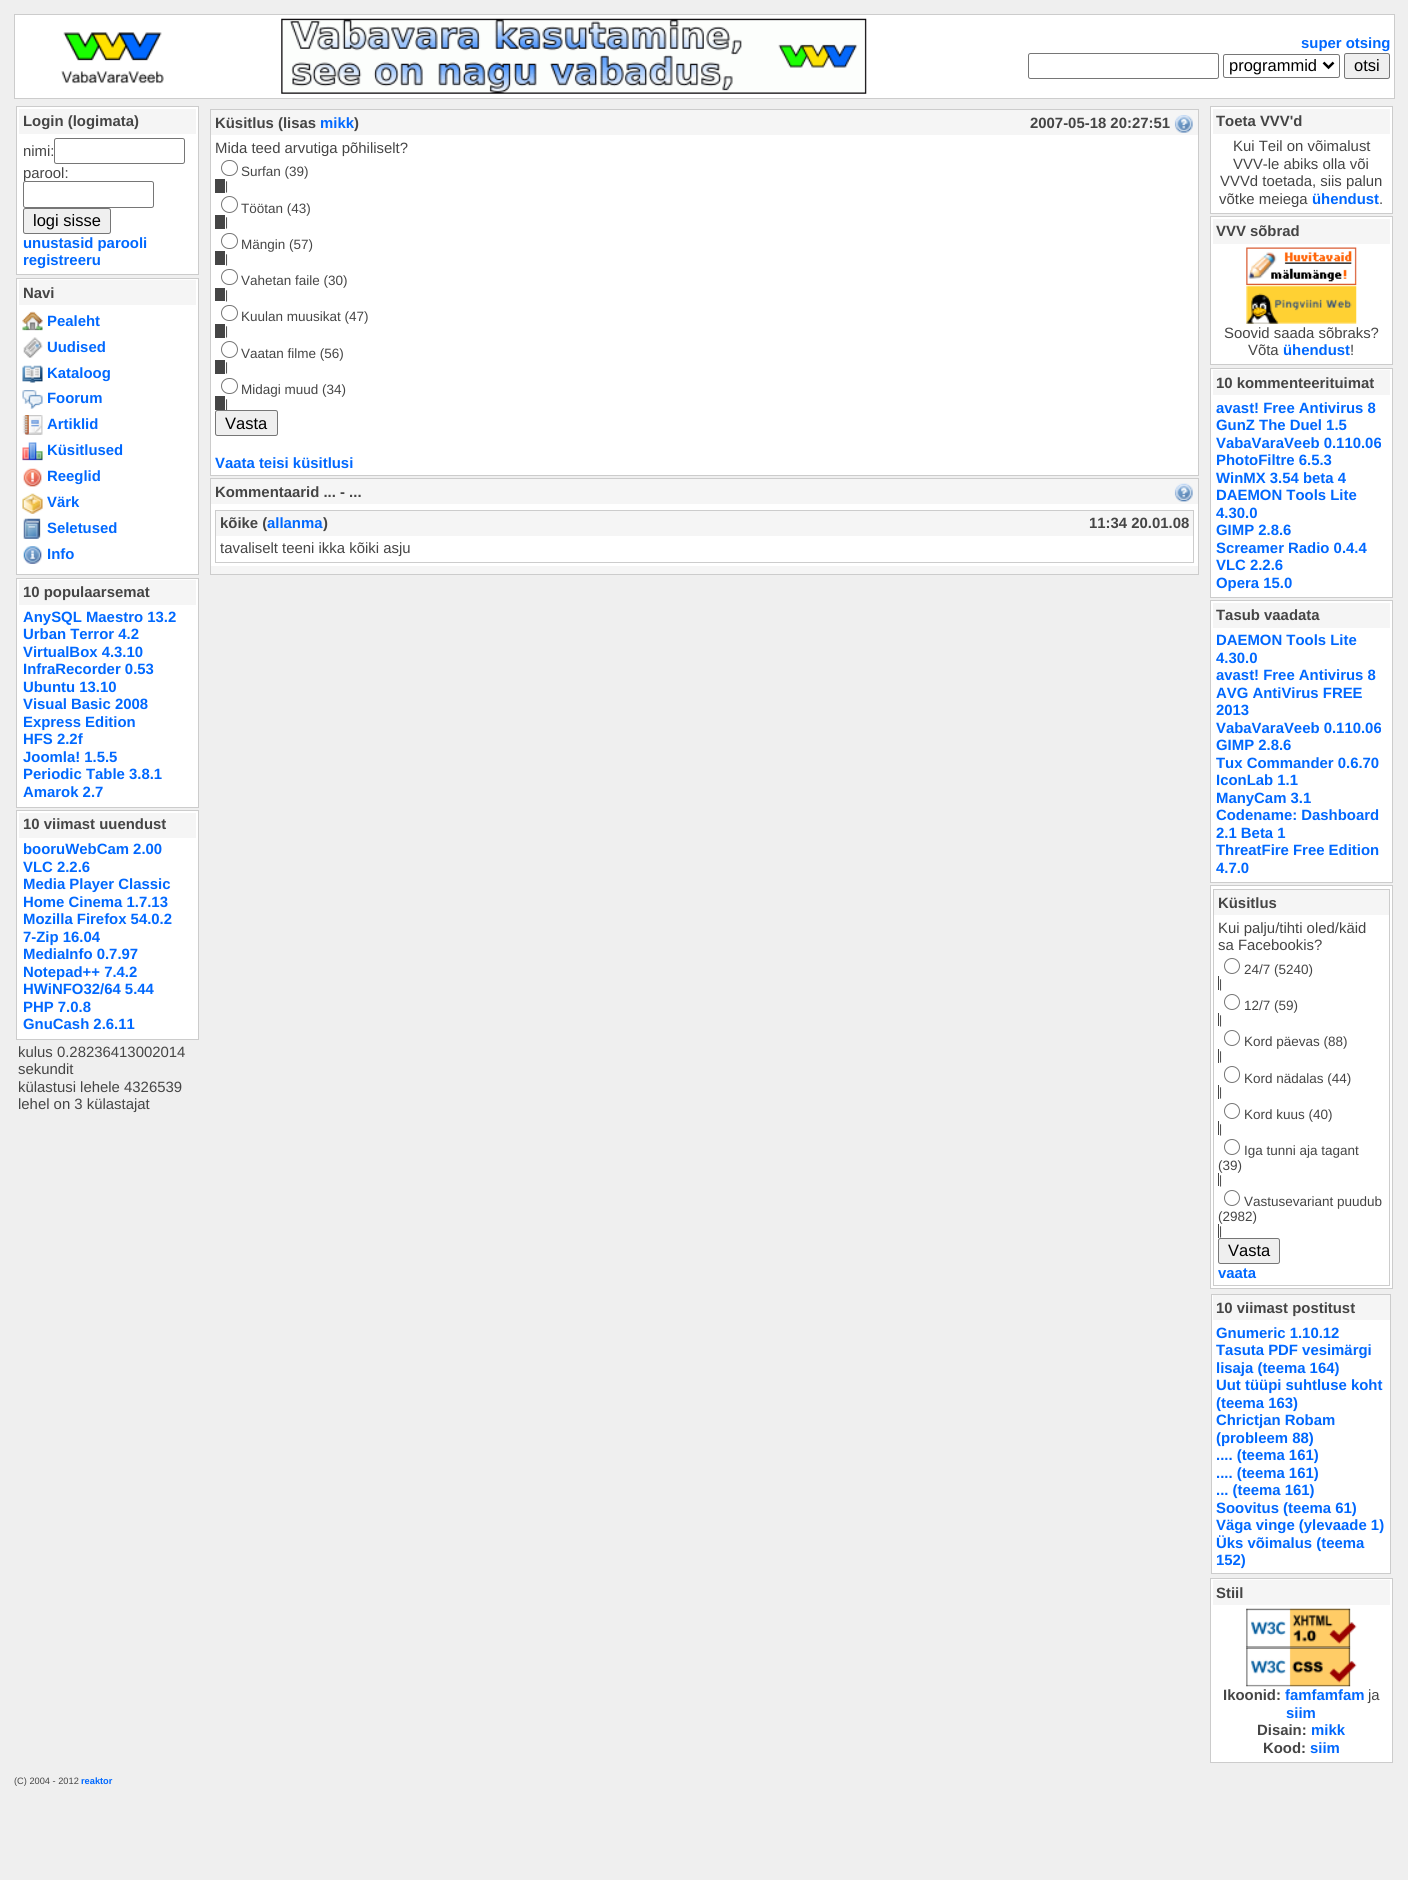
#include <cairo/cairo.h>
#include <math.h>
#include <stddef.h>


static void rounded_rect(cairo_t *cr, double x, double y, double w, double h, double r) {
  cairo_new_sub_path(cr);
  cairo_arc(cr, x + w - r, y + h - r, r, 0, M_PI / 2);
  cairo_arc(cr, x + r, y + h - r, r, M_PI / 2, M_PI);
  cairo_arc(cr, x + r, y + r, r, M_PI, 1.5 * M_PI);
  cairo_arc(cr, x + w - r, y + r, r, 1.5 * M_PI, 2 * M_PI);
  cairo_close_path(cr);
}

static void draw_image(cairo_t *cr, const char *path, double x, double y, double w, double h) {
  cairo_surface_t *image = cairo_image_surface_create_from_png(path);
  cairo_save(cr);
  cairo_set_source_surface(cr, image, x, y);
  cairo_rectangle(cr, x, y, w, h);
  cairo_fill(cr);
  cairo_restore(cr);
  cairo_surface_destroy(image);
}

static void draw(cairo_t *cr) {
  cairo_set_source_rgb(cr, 239 / 255.0, 239 / 255.0, 239 / 255.0);
  cairo_paint(cr);
  cairo_set_source_rgb(cr, 1, 1, 1);
  cairo_rectangle(cr, 14.5, 14.5, 1380, 84);
  cairo_fill_preserve(cr);
  cairo_set_source_rgb(cr, 204 / 255.0, 204 / 255.0, 204 / 255.0);
  cairo_set_line_width(cr, 1);
  cairo_stroke(cr);
  draw_image(cr, "images/1.png", 61, 32, 103, 52);
  draw_image(cr, "images/2.png", 281, 18, 586, 76);
  rounded_rect(cr, 1028.5, 53.5, 190, 25, 2);
  cairo_set_source_rgb(cr, 118 / 255.0, 118 / 255.0, 118 / 255.0);
  cairo_stroke(cr);
  rounded_rect(cr, 1223.5, 54.5, 116, 23, 2);
  cairo_stroke(cr);
  cairo_new_path(cr);
  cairo_move_to(cr, 1323.5, 62.5);
  cairo_line_to(cr, 1328.5, 67.5);
  cairo_line_to(cr, 1333.5, 62.5);
  cairo_set_source_rgb(cr, 0, 0, 0);
  cairo_set_line_width(cr, 2.5);
  cairo_stroke(cr);
  cairo_set_source_rgb(cr, 239 / 255.0, 239 / 255.0, 239 / 255.0);
  rounded_rect(cr, 1344.5, 53.5, 45, 25, 2);
  cairo_fill_preserve(cr);
  cairo_set_source_rgb(cr, 118 / 255.0, 118 / 255.0, 118 / 255.0);
  cairo_set_line_width(cr, 1);
  cairo_stroke(cr);
  cairo_set_source_rgb(cr, 1, 1, 1);
  cairo_rectangle(cr, 16.5, 106.5, 182, 168);
  cairo_fill_preserve(cr);
  cairo_set_source_rgb(cr, 204 / 255.0, 204 / 255.0, 204 / 255.0);
  cairo_stroke(cr);
  cairo_set_source_rgb(cr, 245 / 255.0, 245 / 255.0, 245 / 255.0);
  cairo_rectangle(cr, 19, 109, 177, 25);
  cairo_fill(cr);
  rounded_rect(cr, 54.5, 138.5, 130, 25, 2);
  cairo_set_source_rgb(cr, 118 / 255.0, 118 / 255.0, 118 / 255.0);
  cairo_stroke(cr);
  cairo_set_source_rgb(cr, 239 / 255.0, 239 / 255.0, 239 / 255.0);
  rounded_rect(cr, 23.5, 208.5, 87, 25, 2);
  cairo_fill_preserve(cr);
  cairo_set_source_rgb(cr, 118 / 255.0, 118 / 255.0, 118 / 255.0);
  cairo_stroke(cr);
  cairo_set_source_rgb(cr, 1, 1, 1);
  cairo_rectangle(cr, 16.5, 278.5, 182, 296);
  cairo_fill_preserve(cr);
  cairo_set_source_rgb(cr, 204 / 255.0, 204 / 255.0, 204 / 255.0);
  cairo_stroke(cr);
  cairo_set_source_rgb(cr, 245 / 255.0, 245 / 255.0, 245 / 255.0);
  cairo_rectangle(cr, 19, 280, 177, 25);
  cairo_fill(cr);
  draw_image(cr, "images/3.png", 22, 311, 21, 20);
  draw_image(cr, "images/4.png", 23, 337, 20, 21);
  draw_image(cr, "images/5.png", 22, 365, 21, 18);
  draw_image(cr, "images/6.png", 22, 390, 21, 19);
  draw_image(cr, "images/7.png", 22, 415, 21, 20);
  draw_image(cr, "images/8.png", 22, 442, 21, 19);
  draw_image(cr, "images/9.png", 23, 468, 19, 19);
  draw_image(cr, "images/10.png", 22, 493, 21, 21);
  draw_image(cr, "images/11.png", 23, 518, 18, 21);
  draw_image(cr, "images/12.png", 23, 546, 19, 18);
  cairo_set_source_rgb(cr, 1, 1, 1);
  cairo_rectangle(cr, 16.5, 578.5, 182, 229);
  cairo_fill_preserve(cr);
  cairo_set_source_rgb(cr, 204 / 255.0, 204 / 255.0, 204 / 255.0);
  cairo_stroke(cr);
  cairo_set_source_rgb(cr, 245 / 255.0, 245 / 255.0, 245 / 255.0);
  cairo_rectangle(cr, 19, 580, 177, 25);
  cairo_fill(cr);
  cairo_set_source_rgb(cr, 1, 1, 1);
  cairo_rectangle(cr, 16.5, 810.5, 182, 229);
  cairo_fill_preserve(cr);
  cairo_set_source_rgb(cr, 204 / 255.0, 204 / 255.0, 204 / 255.0);
  cairo_stroke(cr);
  cairo_set_source_rgb(cr, 245 / 255.0, 245 / 255.0, 245 / 255.0);
  cairo_rectangle(cr, 19, 813, 177, 25);
  cairo_fill(cr);
  cairo_set_source_rgb(cr, 1, 1, 1);
  cairo_rectangle(cr, 211, 135, 987, 340);
  cairo_fill(cr);
  cairo_rectangle(cr, 210.5, 109.5, 988, 366);
  cairo_set_source_rgb(cr, 204 / 255.0, 204 / 255.0, 204 / 255.0);
  cairo_stroke(cr);
  cairo_set_source_rgb(cr, 245 / 255.0, 245 / 255.0, 245 / 255.0);
  cairo_rectangle(cr, 211, 110, 987, 25);
  cairo_fill(cr);
  draw_image(cr, "images/13.png", 1174, 115, 19, 18);
  rounded_rect(cr, 221.5, 160.5, 16, 15, 7.5);
  cairo_set_source_rgb(cr, 118 / 255.0, 118 / 255.0, 118 / 255.0);
  cairo_stroke(cr);
  cairo_set_source_rgb(cr, 69 / 255.0, 69 / 255.0, 69 / 255.0);
  cairo_rectangle(cr, 215, 179, 10, 14);
  cairo_fill(cr);
  cairo_arc(cr, 229.5, 204.5, 8, 0, 2 * M_PI);
  cairo_set_source_rgb(cr, 118 / 255.0, 118 / 255.0, 118 / 255.0);
  cairo_stroke(cr);
  cairo_set_source_rgb(cr, 69 / 255.0, 69 / 255.0, 69 / 255.0);
  cairo_rectangle(cr, 215, 215, 10, 14);
  cairo_fill(cr);
  rounded_rect(cr, 221.5, 233.5, 16, 15, 7.5);
  cairo_set_source_rgb(cr, 118 / 255.0, 118 / 255.0, 118 / 255.0);
  cairo_stroke(cr);
  cairo_set_source_rgb(cr, 69 / 255.0, 69 / 255.0, 69 / 255.0);
  cairo_rectangle(cr, 215, 251, 10, 14);
  cairo_fill(cr);
  rounded_rect(cr, 221.5, 269.5, 16, 15, 7.5);
  cairo_set_source_rgb(cr, 118 / 255.0, 118 / 255.0, 118 / 255.0);
  cairo_stroke(cr);
  cairo_set_source_rgb(cr, 69 / 255.0, 69 / 255.0, 69 / 255.0);
  cairo_rectangle(cr, 215, 288, 10, 13);
  cairo_fill(cr);
  rounded_rect(cr, 221.5, 305.5, 16, 15, 7.5);
  cairo_set_source_rgb(cr, 118 / 255.0, 118 / 255.0, 118 / 255.0);
  cairo_stroke(cr);
  cairo_set_source_rgb(cr, 69 / 255.0, 69 / 255.0, 69 / 255.0);
  cairo_rectangle(cr, 215, 324, 10, 14);
  cairo_fill(cr);
  cairo_arc(cr, 229.5, 349.5, 8, 0, 2 * M_PI);
  cairo_set_source_rgb(cr, 118 / 255.0, 118 / 255.0, 118 / 255.0);
  cairo_stroke(cr);
  cairo_set_source_rgb(cr, 69 / 255.0, 69 / 255.0, 69 / 255.0);
  cairo_rectangle(cr, 215, 360, 10, 14);
  cairo_fill(cr);
  rounded_rect(cr, 221.5, 378.5, 16, 15, 7.5);
  cairo_set_source_rgb(cr, 118 / 255.0, 118 / 255.0, 118 / 255.0);
  cairo_stroke(cr);
  cairo_set_source_rgb(cr, 69 / 255.0, 69 / 255.0, 69 / 255.0);
  cairo_rectangle(cr, 215, 396, 10, 14);
  cairo_fill(cr);
  cairo_set_source_rgb(cr, 1, 1, 1);
  cairo_rectangle(cr, 211, 504, 987, 62);
  cairo_fill(cr);
  cairo_rectangle(cr, 210.5, 478.5, 988, 96);
  cairo_set_source_rgb(cr, 204 / 255.0, 204 / 255.0, 204 / 255.0);
  cairo_stroke(cr);
  cairo_set_source_rgb(cr, 245 / 255.0, 245 / 255.0, 245 / 255.0);
  cairo_rectangle(cr, 211, 479, 987, 25);
  cairo_fill(cr);
  draw_image(cr, "images/14.png", 1174, 483, 19, 19);
  cairo_rectangle(cr, 215.5, 510.5, 978, 52);
  cairo_set_source_rgb(cr, 204 / 255.0, 204 / 255.0, 204 / 255.0);
  cairo_stroke(cr);
  cairo_set_source_rgb(cr, 245 / 255.0, 245 / 255.0, 245 / 255.0);
  cairo_rectangle(cr, 216, 511, 977, 25);
  cairo_fill(cr);
  cairo_rectangle(cr, 211, 566, 987, 8);
  cairo_fill(cr);
  cairo_set_source_rgb(cr, 1, 1, 1);
  cairo_rectangle(cr, 1210.5, 106.5, 182, 107);
  cairo_fill_preserve(cr);
  cairo_set_source_rgb(cr, 204 / 255.0, 204 / 255.0, 204 / 255.0);
  cairo_stroke(cr);
  cairo_set_source_rgb(cr, 245 / 255.0, 245 / 255.0, 245 / 255.0);
  cairo_rectangle(cr, 1213, 109, 177, 25);
  cairo_fill(cr);
  cairo_set_source_rgb(cr, 1, 1, 1);
  cairo_rectangle(cr, 1210.5, 216.5, 182, 148);
  cairo_fill_preserve(cr);
  cairo_set_source_rgb(cr, 204 / 255.0, 204 / 255.0, 204 / 255.0);
  cairo_stroke(cr);
  cairo_set_source_rgb(cr, 245 / 255.0, 245 / 255.0, 245 / 255.0);
  cairo_rectangle(cr, 1213, 219, 177, 25);
  cairo_fill(cr);
  draw_image(cr, "images/15.png", 1246, 247, 111, 38);
  draw_image(cr, "images/16.png", 1246, 285, 111, 39);
  cairo_set_source_rgb(cr, 1, 1, 1);
  cairo_rectangle(cr, 1210.5, 368.5, 182, 229);
  cairo_fill_preserve(cr);
  cairo_set_source_rgb(cr, 204 / 255.0, 204 / 255.0, 204 / 255.0);
  cairo_stroke(cr);
  cairo_set_source_rgb(cr, 245 / 255.0, 245 / 255.0, 245 / 255.0);
  cairo_rectangle(cr, 1213, 370, 177, 25);
  cairo_fill(cr);
  cairo_set_source_rgb(cr, 1, 1, 1);
  cairo_rectangle(cr, 1210.5, 600.5, 182, 282);
  cairo_fill_preserve(cr);
  cairo_set_source_rgb(cr, 204 / 255.0, 204 / 255.0, 204 / 255.0);
  cairo_stroke(cr);
  cairo_set_source_rgb(cr, 245 / 255.0, 245 / 255.0, 245 / 255.0);
  cairo_rectangle(cr, 1213, 603, 177, 25);
  cairo_fill(cr);
  cairo_set_source_rgb(cr, 1, 1, 1);
  cairo_rectangle(cr, 1210.5, 885.5, 182, 403);
  cairo_fill_preserve(cr);
  cairo_set_source_rgb(cr, 204 / 255.0, 204 / 255.0, 204 / 255.0);
  cairo_stroke(cr);
  cairo_rectangle(cr, 1213.5, 889.5, 176, 396);
  cairo_stroke(cr);
  cairo_set_source_rgb(cr, 245 / 255.0, 245 / 255.0, 245 / 255.0);
  cairo_rectangle(cr, 1214, 890, 175, 25);
  cairo_fill(cr);
  cairo_arc(cr, 1232, 966, 7.5, 0, 2 * M_PI);
  cairo_set_source_rgb(cr, 118 / 255.0, 118 / 255.0, 118 / 255.0);
  cairo_stroke(cr);
  cairo_set_source_rgb(cr, 69 / 255.0, 69 / 255.0, 69 / 255.0);
  cairo_rectangle(cr, 1218, 976, 1, 14);
  cairo_fill(cr);
  cairo_arc(cr, 1232, 1002, 7.5, 0, 2 * M_PI);
  cairo_set_source_rgb(cr, 118 / 255.0, 118 / 255.0, 118 / 255.0);
  cairo_stroke(cr);
  cairo_set_source_rgb(cr, 69 / 255.0, 69 / 255.0, 69 / 255.0);
  cairo_rectangle(cr, 1218, 1013, 1, 13);
  cairo_fill(cr);
  cairo_arc(cr, 1232, 1038, 7.5, 0, 2 * M_PI);
  cairo_set_source_rgb(cr, 118 / 255.0, 118 / 255.0, 118 / 255.0);
  cairo_stroke(cr);
  cairo_set_source_rgb(cr, 69 / 255.0, 69 / 255.0, 69 / 255.0);
  cairo_rectangle(cr, 1218, 1049, 1, 14);
  cairo_fill(cr);
  rounded_rect(cr, 1224.5, 1066.5, 15, 16, 7.5);
  cairo_set_source_rgb(cr, 118 / 255.0, 118 / 255.0, 118 / 255.0);
  cairo_stroke(cr);
  cairo_set_source_rgb(cr, 69 / 255.0, 69 / 255.0, 69 / 255.0);
  cairo_rectangle(cr, 1218, 1085, 1, 14);
  cairo_fill(cr);
  cairo_arc(cr, 1232, 1111, 7.5, 0, 2 * M_PI);
  cairo_set_source_rgb(cr, 118 / 255.0, 118 / 255.0, 118 / 255.0);
  cairo_stroke(cr);
  cairo_set_source_rgb(cr, 69 / 255.0, 69 / 255.0, 69 / 255.0);
  cairo_rectangle(cr, 1218, 1121, 1, 14);
  cairo_fill(cr);
  cairo_arc(cr, 1232, 1147, 7.5, 0, 2 * M_PI);
  cairo_set_source_rgb(cr, 118 / 255.0, 118 / 255.0, 118 / 255.0);
  cairo_stroke(cr);
  cairo_set_source_rgb(cr, 69 / 255.0, 69 / 255.0, 69 / 255.0);
  cairo_rectangle(cr, 1218, 1173, 1, 13);
  cairo_fill(cr);
  cairo_arc(cr, 1232, 1198, 7.5, 0, 2 * M_PI);
  cairo_set_source_rgb(cr, 118 / 255.0, 118 / 255.0, 118 / 255.0);
  cairo_stroke(cr);
  cairo_set_source_rgb(cr, 69 / 255.0, 69 / 255.0, 69 / 255.0);
  cairo_rectangle(cr, 1218, 1224, 1, 14);
  cairo_fill(cr);
  cairo_set_source_rgb(cr, 239 / 255.0, 239 / 255.0, 239 / 255.0);
  rounded_rect(cr, 1218.5, 1238.5, 61, 25, 2);
  cairo_fill_preserve(cr);
  cairo_set_source_rgb(cr, 118 / 255.0, 118 / 255.0, 118 / 255.0);
  cairo_stroke(cr);
  cairo_set_source_rgb(cr, 1, 1, 1);
  cairo_rectangle(cr, 1211.5, 1294.5, 179, 279);
  cairo_fill_preserve(cr);
  cairo_set_source_rgb(cr, 204 / 255.0, 204 / 255.0, 204 / 255.0);
  cairo_stroke(cr);
  cairo_set_source_rgb(cr, 245 / 255.0, 245 / 255.0, 245 / 255.0);
  cairo_rectangle(cr, 1213, 1295, 177, 25);
  cairo_fill(cr);
  cairo_set_source_rgb(cr, 1, 1, 1);
  cairo_rectangle(cr, 1210.5, 1578.5, 182, 184);
  cairo_fill_preserve(cr);
  cairo_set_source_rgb(cr, 204 / 255.0, 204 / 255.0, 204 / 255.0);
  cairo_stroke(cr);
  cairo_set_source_rgb(cr, 245 / 255.0, 245 / 255.0, 245 / 255.0);
  cairo_rectangle(cr, 1213, 1580, 177, 25);
  cairo_fill(cr);
  draw_image(cr, "images/17.png", 1246, 1608, 111, 40);
  draw_image(cr, "images/18.png", 1246, 1647, 111, 40);
  cairo_select_font_face(cr, "Liberation Sans", CAIRO_FONT_SLANT_NORMAL, CAIRO_FONT_WEIGHT_BOLD);
  cairo_set_font_size(cr, 14.9);
  cairo_set_source_rgb(cr, 0, 104 / 255.0, 1);
  cairo_move_to(cr, 1301, 48);
  cairo_show_text(cr, "super otsing");
  cairo_select_font_face(cr, "Liberation Sans", CAIRO_FONT_SLANT_NORMAL, CAIRO_FONT_WEIGHT_NORMAL);
  cairo_set_font_size(cr, 16.5);
  cairo_set_source_rgb(cr, 0, 0, 0);
  cairo_move_to(cr, 1229, 71);
  cairo_show_text(cr, "programmid");
  cairo_move_to(cr, 1354, 71);
  cairo_show_text(cr, "otsi");
  cairo_select_font_face(cr, "Liberation Sans", CAIRO_FONT_SLANT_NORMAL, CAIRO_FONT_WEIGHT_BOLD);
  cairo_set_font_size(cr, 14.9);
  cairo_set_source_rgb(cr, 69 / 255.0, 69 / 255.0, 69 / 255.0);
  cairo_move_to(cr, 23, 126);
  cairo_show_text(cr, "Login (logimata)");
  cairo_select_font_face(cr, "Liberation Sans", CAIRO_FONT_SLANT_NORMAL, CAIRO_FONT_WEIGHT_NORMAL);
  cairo_move_to(cr, 23, 156);
  cairo_show_text(cr, "nimi:");
  cairo_move_to(cr, 23, 178);
  cairo_show_text(cr, "parool:");
  cairo_set_source_rgb(cr, 1, 1, 1);
  rounded_rect(cr, 23.5, 181.5, 130, 26, 2);
  cairo_fill_preserve(cr);
  cairo_set_source_rgb(cr, 118 / 255.0, 118 / 255.0, 118 / 255.0);
  cairo_stroke(cr);
  cairo_set_font_size(cr, 16.5);
  cairo_set_source_rgb(cr, 0, 0, 0);
  cairo_move_to(cr, 33, 226);
  cairo_show_text(cr, "logi sisse");
  cairo_select_font_face(cr, "Liberation Sans", CAIRO_FONT_SLANT_NORMAL, CAIRO_FONT_WEIGHT_BOLD);
  cairo_set_font_size(cr, 14.9);
  cairo_set_source_rgb(cr, 0, 104 / 255.0, 1);
  cairo_move_to(cr, 23, 248);
  cairo_show_text(cr, "unustasid parooli");
  cairo_move_to(cr, 23, 265);
  cairo_show_text(cr, "registreeru");
  cairo_set_source_rgb(cr, 69 / 255.0, 69 / 255.0, 69 / 255.0);
  cairo_move_to(cr, 23, 298);
  cairo_show_text(cr, "Navi");
  cairo_set_source_rgb(cr, 0, 104 / 255.0, 1);
  cairo_move_to(cr, 47, 326);
  cairo_show_text(cr, "Pealeht");
  cairo_move_to(cr, 47, 352);
  cairo_show_text(cr, "Uudised");
  cairo_move_to(cr, 47, 378);
  cairo_show_text(cr, "Kataloog");
  cairo_move_to(cr, 47, 403);
  cairo_show_text(cr, "Foorum");
  cairo_move_to(cr, 47, 429);
  cairo_show_text(cr, "Artiklid");
  cairo_move_to(cr, 47, 455);
  cairo_show_text(cr, "Küsitlused");
  cairo_move_to(cr, 47, 481);
  cairo_show_text(cr, "Reeglid");
  cairo_move_to(cr, 47, 507);
  cairo_show_text(cr, "Värk");
  cairo_move_to(cr, 47, 533);
  cairo_show_text(cr, "Seletused");
  cairo_move_to(cr, 47, 559);
  cairo_show_text(cr, "Info");
  cairo_set_source_rgb(cr, 69 / 255.0, 69 / 255.0, 69 / 255.0);
  cairo_move_to(cr, 23, 597);
  cairo_show_text(cr, "10 populaarsemat");
  cairo_set_source_rgb(cr, 0, 104 / 255.0, 1);
  cairo_move_to(cr, 23, 622);
  cairo_show_text(cr, "AnySQL Maestro 13.2");
  cairo_move_to(cr, 23, 639);
  cairo_show_text(cr, "Urban Terror 4.2");
  cairo_move_to(cr, 23, 657);
  cairo_show_text(cr, "VirtualBox 4.3.10");
  cairo_move_to(cr, 23, 674);
  cairo_show_text(cr, "InfraRecorder 0.53");
  cairo_move_to(cr, 23, 692);
  cairo_show_text(cr, "Ubuntu 13.10");
  cairo_move_to(cr, 23, 709);
  cairo_show_text(cr, "Visual Basic 2008");
  cairo_move_to(cr, 23, 727);
  cairo_show_text(cr, "Express Edition");
  cairo_move_to(cr, 23, 744);
  cairo_show_text(cr, "HFS 2.2f");
  cairo_move_to(cr, 23, 762);
  cairo_show_text(cr, "Joomla! 1.5.5");
  cairo_move_to(cr, 23, 779);
  cairo_show_text(cr, "Periodic Table 3.8.1");
  cairo_move_to(cr, 23, 797);
  cairo_show_text(cr, "Amarok 2.7");
  cairo_set_source_rgb(cr, 69 / 255.0, 69 / 255.0, 69 / 255.0);
  cairo_move_to(cr, 23, 829);
  cairo_show_text(cr, "10 viimast uuendust");
  cairo_set_source_rgb(cr, 0, 104 / 255.0, 1);
  cairo_move_to(cr, 23, 854);
  cairo_show_text(cr, "booruWebCam 2.00");
  cairo_move_to(cr, 23, 872);
  cairo_show_text(cr, "VLC 2.2.6");
  cairo_move_to(cr, 23, 889);
  cairo_show_text(cr, "Media Player Classic");
  cairo_move_to(cr, 23, 907);
  cairo_show_text(cr, "Home Cinema 1.7.13");
  cairo_move_to(cr, 23, 924);
  cairo_show_text(cr, "Mozilla Firefox 54.0.2");
  cairo_move_to(cr, 23, 942);
  cairo_show_text(cr, "7-Zip 16.04");
  cairo_move_to(cr, 23, 959);
  cairo_show_text(cr, "MediaInfo 0.7.97");
  cairo_move_to(cr, 23, 977);
  cairo_show_text(cr, "Notepad++ 7.4.2");
  cairo_move_to(cr, 23, 994);
  cairo_show_text(cr, "HWiNFO32/64 5.44");
  cairo_move_to(cr, 23, 1012);
  cairo_show_text(cr, "PHP 7.0.8");
  cairo_move_to(cr, 23, 1029);
  cairo_show_text(cr, "GnuCash 2.6.11");
  cairo_select_font_face(cr, "Liberation Sans", CAIRO_FONT_SLANT_NORMAL, CAIRO_FONT_WEIGHT_NORMAL);
  cairo_set_source_rgb(cr, 69 / 255.0, 69 / 255.0, 69 / 255.0);
  cairo_move_to(cr, 18, 1057);
  cairo_show_text(cr, "kulus 0.28236413002014");
  cairo_move_to(cr, 18, 1074);
  cairo_show_text(cr, "sekundit");
  cairo_move_to(cr, 18, 1092);
  cairo_show_text(cr, "külastusi lehele 4326539");
  cairo_move_to(cr, 18, 1109);
  cairo_show_text(cr, "lehel on 3 külastajat");
  cairo_select_font_face(cr, "Liberation Sans", CAIRO_FONT_SLANT_NORMAL, CAIRO_FONT_WEIGHT_BOLD);
  cairo_move_to(cr, 215, 128);
  cairo_show_text(cr, "Küsitlus (lisas");
  cairo_set_source_rgb(cr, 0, 104 / 255.0, 1);
  cairo_move_to(cr, 320, 128);
  cairo_show_text(cr, "mikk");
  cairo_set_source_rgb(cr, 69 / 255.0, 69 / 255.0, 69 / 255.0);
  cairo_move_to(cr, 354, 128);
  cairo_show_text(cr, ")");
  cairo_move_to(cr, 1030, 128);
  cairo_show_text(cr, "2007-05-18 20:27:51");
  cairo_select_font_face(cr, "Liberation Sans", CAIRO_FONT_SLANT_NORMAL, CAIRO_FONT_WEIGHT_NORMAL);
  cairo_move_to(cr, 215, 153);
  cairo_show_text(cr, "Mida teed arvutiga põhiliselt?");
  cairo_set_font_size(cr, 13.5);
  cairo_move_to(cr, 241, 176);
  cairo_show_text(cr, "Surfan (39)");
  cairo_set_font_size(cr, 12);
  cairo_move_to(cr, 225, 190);
  cairo_show_text(cr, "|");
  cairo_set_font_size(cr, 13.5);
  cairo_move_to(cr, 241, 213);
  cairo_show_text(cr, "Töötan (43)");
  cairo_set_font_size(cr, 12);
  cairo_move_to(cr, 225, 226);
  cairo_show_text(cr, "|");
  cairo_set_font_size(cr, 13.5);
  cairo_move_to(cr, 241, 249);
  cairo_show_text(cr, "Mängin (57)");
  cairo_set_font_size(cr, 12);
  cairo_move_to(cr, 225, 263);
  cairo_show_text(cr, "|");
  cairo_set_font_size(cr, 13.5);
  cairo_move_to(cr, 241, 285);
  cairo_show_text(cr, "Vahetan faile (30)");
  cairo_set_font_size(cr, 12);
  cairo_move_to(cr, 225, 299);
  cairo_show_text(cr, "|");
  cairo_set_font_size(cr, 13.5);
  cairo_move_to(cr, 241, 321);
  cairo_show_text(cr, "Kuulan muusikat (47)");
  cairo_set_font_size(cr, 12);
  cairo_move_to(cr, 225, 335);
  cairo_show_text(cr, "|");
  cairo_set_font_size(cr, 13.5);
  cairo_move_to(cr, 241, 358);
  cairo_show_text(cr, "Vaatan filme (56)");
  cairo_set_font_size(cr, 12);
  cairo_move_to(cr, 225, 371);
  cairo_show_text(cr, "|");
  cairo_set_font_size(cr, 13.5);
  cairo_move_to(cr, 241, 394);
  cairo_show_text(cr, "Midagi muud (34)");
  cairo_set_font_size(cr, 12);
  cairo_move_to(cr, 225, 408);
  cairo_show_text(cr, "|");
  cairo_set_source_rgb(cr, 239 / 255.0, 239 / 255.0, 239 / 255.0);
  rounded_rect(cr, 215.5, 410.5, 62, 25, 2);
  cairo_fill_preserve(cr);
  cairo_set_source_rgb(cr, 118 / 255.0, 118 / 255.0, 118 / 255.0);
  cairo_stroke(cr);
  cairo_set_font_size(cr, 16.5);
  cairo_set_source_rgb(cr, 0, 0, 0);
  cairo_move_to(cr, 225, 429);
  cairo_show_text(cr, "Vasta");
  cairo_select_font_face(cr, "Liberation Sans", CAIRO_FONT_SLANT_NORMAL, CAIRO_FONT_WEIGHT_BOLD);
  cairo_set_font_size(cr, 14.9);
  cairo_set_source_rgb(cr, 0, 104 / 255.0, 1);
  cairo_move_to(cr, 215, 468);
  cairo_show_text(cr, "Vaata teisi küsitlusi");
  cairo_set_source_rgb(cr, 69 / 255.0, 69 / 255.0, 69 / 255.0);
  cairo_move_to(cr, 215, 497);
  cairo_show_text(cr, "Kommentaarid ... - ...");
  cairo_move_to(cr, 220, 528);
  cairo_show_text(cr, "kõike (");
  cairo_set_source_rgb(cr, 0, 104 / 255.0, 1);
  cairo_move_to(cr, 267, 528);
  cairo_show_text(cr, "allanma");
  cairo_set_source_rgb(cr, 69 / 255.0, 69 / 255.0, 69 / 255.0);
  cairo_move_to(cr, 323, 528);
  cairo_show_text(cr, ")");
  cairo_move_to(cr, 1089, 528);
  cairo_show_text(cr, "11:34 20.01.08");
  cairo_select_font_face(cr, "Liberation Sans", CAIRO_FONT_SLANT_NORMAL, CAIRO_FONT_WEIGHT_NORMAL);
  cairo_move_to(cr, 220, 553);
  cairo_show_text(cr, "tavaliselt teeni ikka kõiki asju");
  cairo_select_font_face(cr, "Liberation Sans", CAIRO_FONT_SLANT_NORMAL, CAIRO_FONT_WEIGHT_BOLD);
  cairo_move_to(cr, 1216, 126);
  cairo_show_text(cr, "Toeta VVV'd");
  cairo_select_font_face(cr, "Liberation Sans", CAIRO_FONT_SLANT_NORMAL, CAIRO_FONT_WEIGHT_NORMAL);
  cairo_move_to(cr, 1233, 151);
  cairo_show_text(cr, "Kui Teil on võimalust");
  cairo_move_to(cr, 1233, 169);
  cairo_show_text(cr, "VVV-le abiks olla või");
  cairo_move_to(cr, 1220, 186);
  cairo_show_text(cr, "VVVd toetada, siis palun");
  cairo_move_to(cr, 1219, 204);
  cairo_show_text(cr, "võtke meiega");
  cairo_select_font_face(cr, "Liberation Sans", CAIRO_FONT_SLANT_NORMAL, CAIRO_FONT_WEIGHT_BOLD);
  cairo_set_source_rgb(cr, 0, 104 / 255.0, 1);
  cairo_move_to(cr, 1312, 204);
  cairo_show_text(cr, "ühendust");
  cairo_select_font_face(cr, "Liberation Sans", CAIRO_FONT_SLANT_NORMAL, CAIRO_FONT_WEIGHT_NORMAL);
  cairo_set_source_rgb(cr, 69 / 255.0, 69 / 255.0, 69 / 255.0);
  cairo_move_to(cr, 1379, 204);
  cairo_show_text(cr, ".");
  cairo_select_font_face(cr, "Liberation Sans", CAIRO_FONT_SLANT_NORMAL, CAIRO_FONT_WEIGHT_BOLD);
  cairo_move_to(cr, 1216, 236);
  cairo_show_text(cr, "VVV sõbrad");
  cairo_select_font_face(cr, "Liberation Sans", CAIRO_FONT_SLANT_NORMAL, CAIRO_FONT_WEIGHT_NORMAL);
  cairo_move_to(cr, 1224, 338);
  cairo_show_text(cr, "Soovid saada sõbraks?");
  cairo_move_to(cr, 1248, 355);
  cairo_show_text(cr, "Võta");
  cairo_select_font_face(cr, "Liberation Sans", CAIRO_FONT_SLANT_NORMAL, CAIRO_FONT_WEIGHT_BOLD);
  cairo_set_source_rgb(cr, 0, 104 / 255.0, 1);
  cairo_move_to(cr, 1283, 355);
  cairo_show_text(cr, "ühendust");
  cairo_select_font_face(cr, "Liberation Sans", CAIRO_FONT_SLANT_NORMAL, CAIRO_FONT_WEIGHT_NORMAL);
  cairo_set_source_rgb(cr, 69 / 255.0, 69 / 255.0, 69 / 255.0);
  cairo_move_to(cr, 1350, 355);
  cairo_show_text(cr, "!");
  cairo_select_font_face(cr, "Liberation Sans", CAIRO_FONT_SLANT_NORMAL, CAIRO_FONT_WEIGHT_BOLD);
  cairo_move_to(cr, 1216, 388);
  cairo_show_text(cr, "10 kommenteerituimat");
  cairo_set_source_rgb(cr, 0, 104 / 255.0, 1);
  cairo_move_to(cr, 1216, 413);
  cairo_show_text(cr, "avast! Free Antivirus 8");
  cairo_move_to(cr, 1216, 430);
  cairo_show_text(cr, "GunZ The Duel 1.5");
  cairo_move_to(cr, 1216, 448);
  cairo_show_text(cr, "VabaVaraVeeb 0.110.06");
  cairo_move_to(cr, 1216, 465);
  cairo_show_text(cr, "PhotoFiltre 6.5.3");
  cairo_move_to(cr, 1216, 483);
  cairo_show_text(cr, "WinMX 3.54 beta 4");
  cairo_move_to(cr, 1216, 500);
  cairo_show_text(cr, "DAEMON Tools Lite");
  cairo_move_to(cr, 1216, 518);
  cairo_show_text(cr, "4.30.0");
  cairo_move_to(cr, 1216, 535);
  cairo_show_text(cr, "GIMP 2.8.6");
  cairo_move_to(cr, 1216, 553);
  cairo_show_text(cr, "Screamer Radio 0.4.4");
  cairo_move_to(cr, 1216, 570);
  cairo_show_text(cr, "VLC 2.2.6");
  cairo_move_to(cr, 1216, 588);
  cairo_show_text(cr, "Opera 15.0");
  cairo_set_source_rgb(cr, 69 / 255.0, 69 / 255.0, 69 / 255.0);
  cairo_move_to(cr, 1216, 620);
  cairo_show_text(cr, "Tasub vaadata");
  cairo_set_source_rgb(cr, 0, 104 / 255.0, 1);
  cairo_move_to(cr, 1216, 645);
  cairo_show_text(cr, "DAEMON Tools Lite");
  cairo_move_to(cr, 1216, 663);
  cairo_show_text(cr, "4.30.0");
  cairo_move_to(cr, 1216, 680);
  cairo_show_text(cr, "avast! Free Antivirus 8");
  cairo_move_to(cr, 1216, 698);
  cairo_show_text(cr, "AVG AntiVirus FREE");
  cairo_move_to(cr, 1216, 715);
  cairo_show_text(cr, "2013");
  cairo_move_to(cr, 1216, 733);
  cairo_show_text(cr, "VabaVaraVeeb 0.110.06");
  cairo_move_to(cr, 1216, 750);
  cairo_show_text(cr, "GIMP 2.8.6");
  cairo_move_to(cr, 1216, 768);
  cairo_show_text(cr, "Tux Commander 0.6.70");
  cairo_move_to(cr, 1216, 785);
  cairo_show_text(cr, "IconLab 1.1");
  cairo_move_to(cr, 1216, 803);
  cairo_show_text(cr, "ManyCam 3.1");
  cairo_move_to(cr, 1216, 820);
  cairo_show_text(cr, "Codename: Dashboard");
  cairo_move_to(cr, 1216, 838);
  cairo_show_text(cr, "2.1 Beta 1");
  cairo_move_to(cr, 1216, 855);
  cairo_show_text(cr, "ThreatFire Free Edition");
  cairo_move_to(cr, 1216, 873);
  cairo_show_text(cr, "4.7.0");
  cairo_set_source_rgb(cr, 69 / 255.0, 69 / 255.0, 69 / 255.0);
  cairo_move_to(cr, 1218, 908);
  cairo_show_text(cr, "Küsitlus");
  cairo_select_font_face(cr, "Liberation Sans", CAIRO_FONT_SLANT_NORMAL, CAIRO_FONT_WEIGHT_NORMAL);
  cairo_move_to(cr, 1218, 933);
  cairo_show_text(cr, "Kui palju/tihti oled/käid");
  cairo_move_to(cr, 1218, 950);
  cairo_show_text(cr, "sa Facebookis?");
  cairo_set_font_size(cr, 13.5);
  cairo_move_to(cr, 1244, 974);
  cairo_show_text(cr, "24/7 (5240)");
  cairo_set_font_size(cr, 12);
  cairo_move_to(cr, 1219, 988);
  cairo_show_text(cr, "|");
  cairo_set_font_size(cr, 13.5);
  cairo_move_to(cr, 1244, 1010);
  cairo_show_text(cr, "12/7 (59)");
  cairo_set_font_size(cr, 12);
  cairo_move_to(cr, 1219, 1024);
  cairo_show_text(cr, "|");
  cairo_set_font_size(cr, 13.5);
  cairo_move_to(cr, 1244, 1046);
  cairo_show_text(cr, "Kord päevas (88)");
  cairo_set_font_size(cr, 12);
  cairo_move_to(cr, 1219, 1060);
  cairo_show_text(cr, "|");
  cairo_set_font_size(cr, 13.5);
  cairo_move_to(cr, 1244, 1083);
  cairo_show_text(cr, "Kord nädalas (44)");
  cairo_set_font_size(cr, 12);
  cairo_move_to(cr, 1219, 1096);
  cairo_show_text(cr, "|");
  cairo_set_font_size(cr, 13.5);
  cairo_move_to(cr, 1244, 1119);
  cairo_show_text(cr, "Kord kuus (40)");
  cairo_set_font_size(cr, 12);
  cairo_move_to(cr, 1219, 1133);
  cairo_show_text(cr, "|");
  cairo_set_font_size(cr, 13.5);
  cairo_move_to(cr, 1244, 1155);
  cairo_show_text(cr, "Iga tunni aja tagant");
  cairo_move_to(cr, 1218, 1170);
  cairo_show_text(cr, "(39)");
  cairo_set_font_size(cr, 12);
  cairo_move_to(cr, 1219, 1184);
  cairo_show_text(cr, "|");
  cairo_set_font_size(cr, 13.5);
  cairo_move_to(cr, 1244, 1206);
  cairo_show_text(cr, "Vastusevariant puudub");
  cairo_move_to(cr, 1218, 1221);
  cairo_show_text(cr, "(2982)");
  cairo_set_font_size(cr, 12);
  cairo_move_to(cr, 1219, 1235);
  cairo_show_text(cr, "|");
  cairo_set_font_size(cr, 16.5);
  cairo_set_source_rgb(cr, 0, 0, 0);
  cairo_move_to(cr, 1228, 1256);
  cairo_show_text(cr, "Vasta");
  cairo_select_font_face(cr, "Liberation Sans", CAIRO_FONT_SLANT_NORMAL, CAIRO_FONT_WEIGHT_BOLD);
  cairo_set_font_size(cr, 14.9);
  cairo_set_source_rgb(cr, 0, 104 / 255.0, 1);
  cairo_move_to(cr, 1218, 1278);
  cairo_show_text(cr, "vaata");
  cairo_set_source_rgb(cr, 69 / 255.0, 69 / 255.0, 69 / 255.0);
  cairo_move_to(cr, 1216, 1313);
  cairo_show_text(cr, "10 viimast postitust");
  cairo_set_source_rgb(cr, 0, 104 / 255.0, 1);
  cairo_move_to(cr, 1216, 1338);
  cairo_show_text(cr, "Gnumeric 1.10.12");
  cairo_move_to(cr, 1216, 1355);
  cairo_show_text(cr, "Tasuta PDF vesimärgi");
  cairo_move_to(cr, 1216, 1373);
  cairo_show_text(cr, "lisaja (teema 164)");
  cairo_move_to(cr, 1216, 1390);
  cairo_show_text(cr, "Uut tüüpi suhtluse koht");
  cairo_move_to(cr, 1216, 1408);
  cairo_show_text(cr, "(teema 163)");
  cairo_move_to(cr, 1216, 1425);
  cairo_show_text(cr, "Chrictjan Robam");
  cairo_move_to(cr, 1216, 1443);
  cairo_show_text(cr, "(probleem 88)");
  cairo_move_to(cr, 1216, 1460);
  cairo_show_text(cr, ".... (teema 161)");
  cairo_move_to(cr, 1216, 1478);
  cairo_show_text(cr, ".... (teema 161)");
  cairo_move_to(cr, 1216, 1495);
  cairo_show_text(cr, "... (teema 161)");
  cairo_move_to(cr, 1216, 1513);
  cairo_show_text(cr, "Soovitus (teema 61)");
  cairo_move_to(cr, 1216, 1530);
  cairo_show_text(cr, "Väga vinge (ylevaade 1)");
  cairo_move_to(cr, 1216, 1548);
  cairo_show_text(cr, "Üks võimalus (teema");
  cairo_move_to(cr, 1216, 1565);
  cairo_show_text(cr, "152)");
  cairo_set_source_rgb(cr, 69 / 255.0, 69 / 255.0, 69 / 255.0);
  cairo_move_to(cr, 1216, 1598);
  cairo_show_text(cr, "Stiil");
  cairo_move_to(cr, 1223, 1700);
  cairo_show_text(cr, "Ikoonid:");
  cairo_set_source_rgb(cr, 0, 104 / 255.0, 1);
  cairo_move_to(cr, 1285, 1700);
  cairo_show_text(cr, "famfamfam");
  cairo_select_font_face(cr, "Liberation Sans", CAIRO_FONT_SLANT_NORMAL, CAIRO_FONT_WEIGHT_NORMAL);
  cairo_set_source_rgb(cr, 69 / 255.0, 69 / 255.0, 69 / 255.0);
  cairo_move_to(cr, 1368, 1700);
  cairo_show_text(cr, "ja");
  cairo_select_font_face(cr, "Liberation Sans", CAIRO_FONT_SLANT_NORMAL, CAIRO_FONT_WEIGHT_BOLD);
  cairo_set_source_rgb(cr, 0, 104 / 255.0, 1);
  cairo_move_to(cr, 1286, 1718);
  cairo_show_text(cr, "siim");
  cairo_set_source_rgb(cr, 69 / 255.0, 69 / 255.0, 69 / 255.0);
  cairo_move_to(cr, 1257, 1735);
  cairo_show_text(cr, "Disain:");
  cairo_set_source_rgb(cr, 0, 104 / 255.0, 1);
  cairo_move_to(cr, 1311, 1735);
  cairo_show_text(cr, "mikk");
  cairo_set_source_rgb(cr, 69 / 255.0, 69 / 255.0, 69 / 255.0);
  cairo_move_to(cr, 1263, 1753);
  cairo_show_text(cr, "Kood:");
  cairo_set_source_rgb(cr, 0, 104 / 255.0, 1);
  cairo_move_to(cr, 1310, 1753);
  cairo_show_text(cr, "siim");
  cairo_select_font_face(cr, "Liberation Sans", CAIRO_FONT_SLANT_NORMAL, CAIRO_FONT_WEIGHT_NORMAL);
  cairo_set_font_size(cr, 9.25);
  cairo_set_source_rgb(cr, 69 / 255.0, 69 / 255.0, 69 / 255.0);
  cairo_move_to(cr, 14, 1784);
  cairo_show_text(cr, "(C) 2004 - 2012");
  cairo_select_font_face(cr, "Liberation Sans", CAIRO_FONT_SLANT_NORMAL, CAIRO_FONT_WEIGHT_BOLD);
  cairo_set_source_rgb(cr, 0, 104 / 255.0, 1);
  cairo_move_to(cr, 81, 1784);
  cairo_show_text(cr, "reaktor");
}

int main(void) {
  cairo_surface_t *surface = cairo_image_surface_create(CAIRO_FORMAT_RGB24, 1408, 1880);
  cairo_t *cr = cairo_create(surface);
  cairo_font_options_t *options = cairo_font_options_create();
  cairo_font_options_set_hint_metrics(options, CAIRO_HINT_METRICS_OFF);
  cairo_font_options_set_hint_style(options, CAIRO_HINT_STYLE_NONE);
  cairo_set_font_options(cr, options);
  cairo_set_miter_limit(cr, 4);
  draw(cr);
  cairo_surface_write_to_png(surface, "out.png");
  cairo_font_options_destroy(options);
  cairo_destroy(cr);
  cairo_surface_destroy(surface);
  return 0;
}
